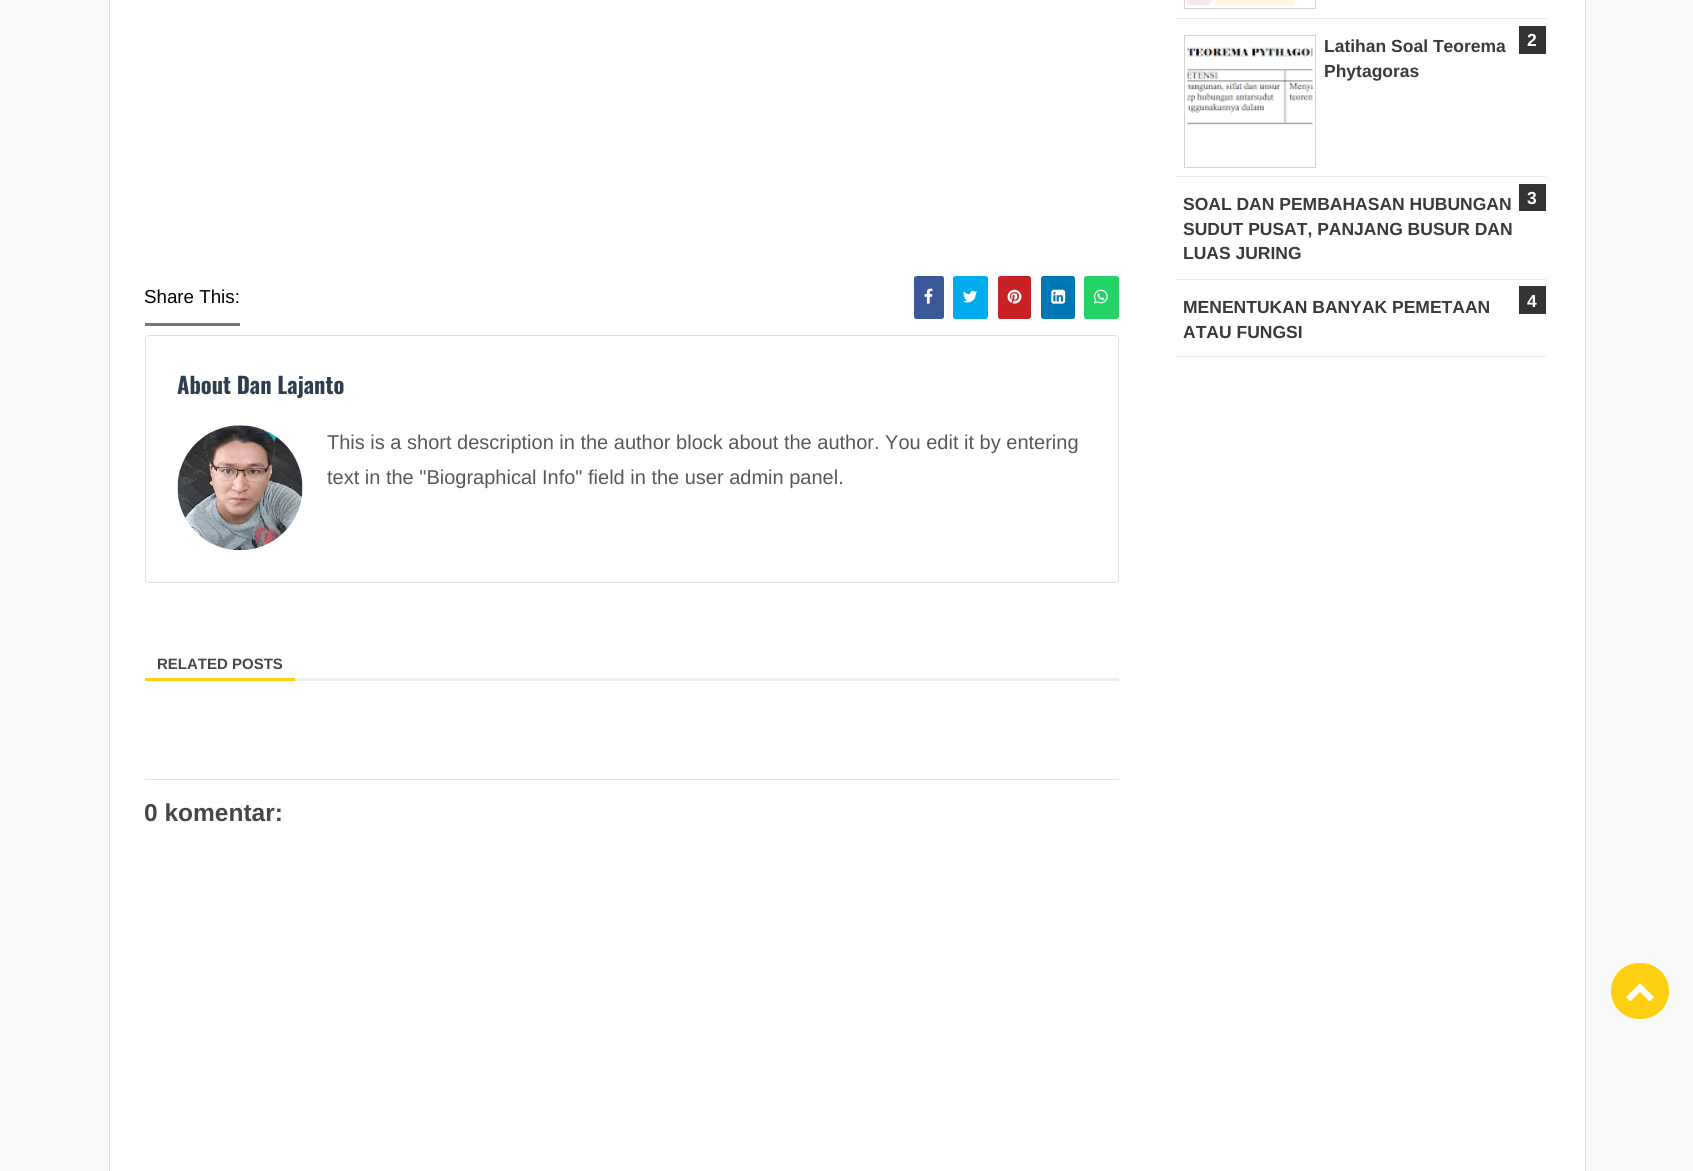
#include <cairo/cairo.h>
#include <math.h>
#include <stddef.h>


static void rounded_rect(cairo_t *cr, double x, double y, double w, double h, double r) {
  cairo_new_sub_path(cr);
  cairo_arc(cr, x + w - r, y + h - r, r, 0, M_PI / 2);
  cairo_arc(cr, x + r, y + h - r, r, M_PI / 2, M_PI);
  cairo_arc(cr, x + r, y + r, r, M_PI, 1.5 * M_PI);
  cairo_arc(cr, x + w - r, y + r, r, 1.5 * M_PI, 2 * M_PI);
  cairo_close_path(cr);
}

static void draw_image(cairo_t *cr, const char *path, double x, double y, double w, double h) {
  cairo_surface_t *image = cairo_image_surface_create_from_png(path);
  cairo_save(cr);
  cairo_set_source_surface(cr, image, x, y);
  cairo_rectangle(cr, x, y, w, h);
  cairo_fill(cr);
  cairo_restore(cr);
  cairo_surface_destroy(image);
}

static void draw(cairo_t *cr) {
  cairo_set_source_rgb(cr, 249 / 255.0, 249 / 255.0, 249 / 255.0);
  cairo_paint(cr);
  cairo_set_source_rgb(cr, 1, 1, 1);
  cairo_rectangle(cr, 109.5, -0.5, 1476, 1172);
  cairo_fill_preserve(cr);
  cairo_set_source_rgb(cr, 223 / 255.0, 223 / 255.0, 223 / 255.0);
  cairo_set_line_width(cr, 1);
  cairo_stroke(cr);
  cairo_set_source_rgb(cr, 233 / 255.0, 233 / 255.0, 233 / 255.0);
  cairo_rectangle(cr, 1175, 18, 371, 1);
  cairo_fill(cr);
  cairo_rectangle(cr, 1184.5, -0.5, 131, 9);
  cairo_set_source_rgb(cr, 211 / 255.0, 211 / 255.0, 211 / 255.0);
  cairo_stroke(cr);
  draw_image(cr, "images/1.png", 1187, 0, 108, 6);
  cairo_set_source_rgb(cr, 233 / 255.0, 233 / 255.0, 233 / 255.0);
  cairo_rectangle(cr, 1175, 176, 371, 1);
  cairo_fill(cr);
  cairo_rectangle(cr, 1184.5, 35.5, 131, 132);
  cairo_set_source_rgb(cr, 211 / 255.0, 211 / 255.0, 211 / 255.0);
  cairo_stroke(cr);
  draw_image(cr, "images/2.png", 1187, 47, 126, 78);
  cairo_set_source_rgb(cr, 51 / 255.0, 51 / 255.0, 51 / 255.0);
  cairo_rectangle(cr, 1519, 26, 27, 28);
  cairo_fill(cr);
  cairo_set_source_rgb(cr, 233 / 255.0, 233 / 255.0, 233 / 255.0);
  cairo_rectangle(cr, 1175, 279, 371, 1);
  cairo_fill(cr);
  cairo_set_source_rgb(cr, 51 / 255.0, 51 / 255.0, 51 / 255.0);
  cairo_rectangle(cr, 1519, 184, 27, 27);
  cairo_fill(cr);
  cairo_set_source_rgb(cr, 233 / 255.0, 233 / 255.0, 233 / 255.0);
  cairo_rectangle(cr, 1175, 356, 371, 1);
  cairo_fill(cr);
  cairo_set_source_rgb(cr, 51 / 255.0, 51 / 255.0, 51 / 255.0);
  cairo_rectangle(cr, 1519, 286, 27, 28);
  cairo_fill(cr);
  cairo_set_source_rgb(cr, 226 / 255.0, 226 / 255.0, 226 / 255.0);
  cairo_rectangle(cr, 145, 779, 974, 1);
  cairo_fill(cr);
  cairo_set_source_rgb(cr, 119 / 255.0, 119 / 255.0, 119 / 255.0);
  cairo_rectangle(cr, 145, 323, 95, 3);
  cairo_fill(cr);
  cairo_set_source_rgb(cr, 59 / 255.0, 89 / 255.0, 152 / 255.0);
  rounded_rect(cr, 914, 276, 30, 43, 2.5);
  cairo_fill(cr);
  draw_image(cr, "images/3.png", 924, 288, 9, 16);
  cairo_set_source_rgb(cr, 0, 172 / 255.0, 238 / 255.0);
  rounded_rect(cr, 953, 276, 35, 43, 2.5);
  cairo_fill(cr);
  draw_image(cr, "images/4.png", 963, 290, 14, 13);
  cairo_set_source_rgb(cr, 202 / 255.0, 33 / 255.0, 39 / 255.0);
  rounded_rect(cr, 998, 276, 33, 43, 2.5);
  cairo_fill(cr);
  draw_image(cr, "images/5.png", 1007, 289, 15, 15);
  cairo_set_source_rgb(cr, 0, 119 / 255.0, 181 / 255.0);
  rounded_rect(cr, 1041, 276, 34, 43, 2.5);
  cairo_fill(cr);
  draw_image(cr, "images/6.png", 1051, 289, 15, 15);
  cairo_set_source_rgb(cr, 37 / 255.0, 210 / 255.0, 102 / 255.0);
  rounded_rect(cr, 1084, 276, 35, 43, 2.5);
  cairo_fill(cr);
  draw_image(cr, "images/7.png", 1093, 289, 15, 15);
  rounded_rect(cr, 145.5, 335.5, 973, 247, 3.5);
  cairo_set_source_rgb(cr, 223 / 255.0, 223 / 255.0, 223 / 255.0);
  cairo_stroke(cr);
  draw_image(cr, "images/8.png", 177, 425, 126, 126);
  cairo_set_source_rgb(cr, 238 / 255.0, 238 / 255.0, 238 / 255.0);
  cairo_rectangle(cr, 295, 678, 824, 3);
  cairo_fill(cr);
  cairo_set_source_rgb(cr, 1, 208 / 255.0, 18 / 255.0);
  cairo_rectangle(cr, 145, 678, 150, 3);
  cairo_fill(cr);
  rounded_rect(cr, 1611.5, 963.5, 57, 55, 27.5);
  cairo_fill_preserve(cr);
  cairo_stroke(cr);
  draw_image(cr, "images/9.png", 1626, 983, 28, 18);
  cairo_select_font_face(cr, "Liberation Sans", CAIRO_FONT_SLANT_NORMAL, CAIRO_FONT_WEIGHT_BOLD);
  cairo_set_font_size(cr, 17.5);
  cairo_set_source_rgb(cr, 58 / 255.0, 58 / 255.0, 58 / 255.0);
  cairo_move_to(cr, 1324, 52);
  cairo_show_text(cr, "Latihan Soal Teorema");
  cairo_move_to(cr, 1324, 77);
  cairo_show_text(cr, "Phytagoras");
  cairo_set_source_rgb(cr, 1, 1, 1);
  cairo_move_to(cr, 1527, 46);
  cairo_show_text(cr, "2");
  cairo_set_source_rgb(cr, 58 / 255.0, 58 / 255.0, 58 / 255.0);
  cairo_move_to(cr, 1183, 210);
  cairo_show_text(cr, "SOAL DAN PEMBAHASAN HUBUNGAN");
  cairo_move_to(cr, 1183, 235);
  cairo_show_text(cr, "SUDUT PUSAT, PANJANG BUSUR DAN");
  cairo_move_to(cr, 1183, 259);
  cairo_show_text(cr, "LUAS JURING");
  cairo_set_source_rgb(cr, 1, 1, 1);
  cairo_move_to(cr, 1527, 204);
  cairo_show_text(cr, "3");
  cairo_set_source_rgb(cr, 58 / 255.0, 58 / 255.0, 58 / 255.0);
  cairo_move_to(cr, 1183, 313);
  cairo_show_text(cr, "MENENTUKAN BANYAK PEMETAAN");
  cairo_move_to(cr, 1183, 338);
  cairo_show_text(cr, "ATAU FUNGSI");
  cairo_set_source_rgb(cr, 1, 1, 1);
  cairo_move_to(cr, 1527, 307);
  cairo_show_text(cr, "4");
  cairo_select_font_face(cr, "Liberation Sans", CAIRO_FONT_SLANT_NORMAL, CAIRO_FONT_WEIGHT_NORMAL);
  cairo_set_font_size(cr, 18.75);
  cairo_set_source_rgb(cr, 1 / 255.0, 1 / 255.0, 1 / 255.0);
  cairo_move_to(cr, 144, 303);
  cairo_show_text(cr, "Share This:");
  cairo_select_font_face(cr, "Oswald", CAIRO_FONT_SLANT_NORMAL, CAIRO_FONT_WEIGHT_BOLD);
  cairo_set_font_size(cr, 22.5);
  cairo_set_source_rgb(cr, 44 / 255.0, 62 / 255.0, 80 / 255.0);
  cairo_move_to(cr, 177, 394);
  cairo_show_text(cr, "About Dan Lajanto");
  cairo_select_font_face(cr, "Liberation Sans", CAIRO_FONT_SLANT_NORMAL, CAIRO_FONT_WEIGHT_NORMAL);
  cairo_set_font_size(cr, 20);
  cairo_set_source_rgb(cr, 88 / 255.0, 88 / 255.0, 88 / 255.0);
  cairo_move_to(cr, 327, 449);
  cairo_show_text(cr, "This is a short description in the author block about the author. You edit it by entering");
  cairo_move_to(cr, 327, 484);
  cairo_show_text(cr, "text in the \"Biographical Info\" field in the user admin panel.");
  cairo_select_font_face(cr, "Liberation Sans", CAIRO_FONT_SLANT_NORMAL, CAIRO_FONT_WEIGHT_BOLD);
  cairo_set_font_size(cr, 15);
  cairo_set_source_rgb(cr, 71 / 255.0, 71 / 255.0, 71 / 255.0);
  cairo_move_to(cr, 157, 669);
  cairo_show_text(cr, "RELATED POSTS");
  cairo_set_font_size(cr, 24.5);
  cairo_move_to(cr, 144, 821);
  cairo_show_text(cr, "0 komentar:");
}

int main(void) {
  cairo_surface_t *surface = cairo_image_surface_create(CAIRO_FORMAT_RGB24, 1693, 1171);
  cairo_t *cr = cairo_create(surface);
  cairo_font_options_t *options = cairo_font_options_create();
  cairo_font_options_set_hint_metrics(options, CAIRO_HINT_METRICS_OFF);
  cairo_font_options_set_hint_style(options, CAIRO_HINT_STYLE_NONE);
  cairo_set_font_options(cr, options);
  cairo_set_miter_limit(cr, 4);
  draw(cr);
  cairo_surface_write_to_png(surface, "out.png");
  cairo_font_options_destroy(options);
  cairo_destroy(cr);
  cairo_surface_destroy(surface);
  return 0;
}
